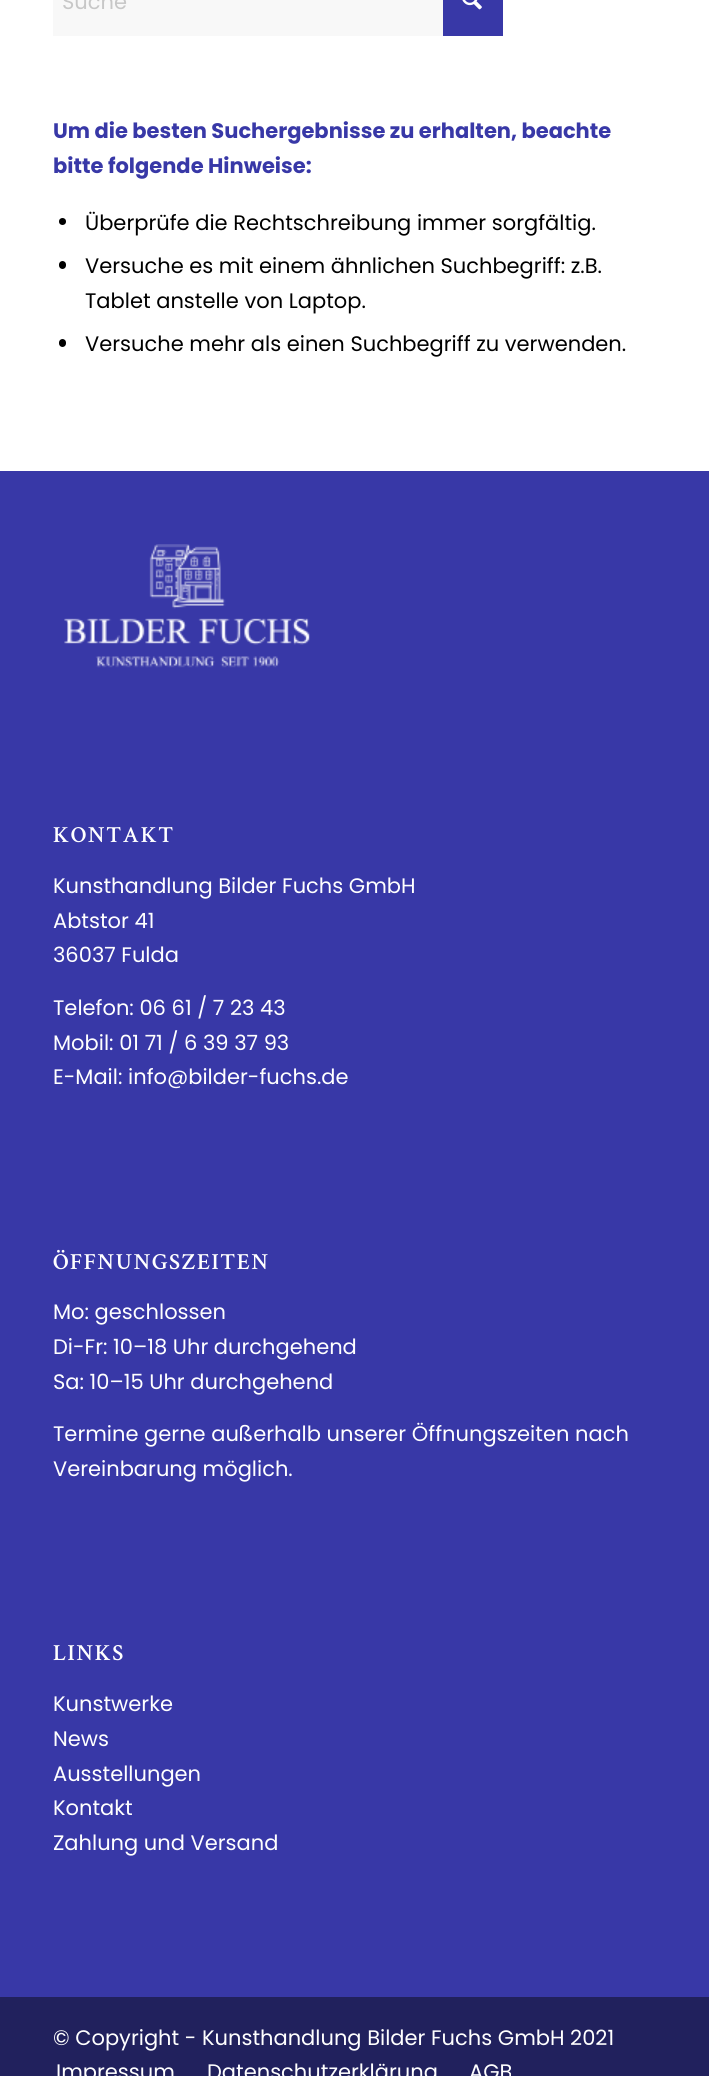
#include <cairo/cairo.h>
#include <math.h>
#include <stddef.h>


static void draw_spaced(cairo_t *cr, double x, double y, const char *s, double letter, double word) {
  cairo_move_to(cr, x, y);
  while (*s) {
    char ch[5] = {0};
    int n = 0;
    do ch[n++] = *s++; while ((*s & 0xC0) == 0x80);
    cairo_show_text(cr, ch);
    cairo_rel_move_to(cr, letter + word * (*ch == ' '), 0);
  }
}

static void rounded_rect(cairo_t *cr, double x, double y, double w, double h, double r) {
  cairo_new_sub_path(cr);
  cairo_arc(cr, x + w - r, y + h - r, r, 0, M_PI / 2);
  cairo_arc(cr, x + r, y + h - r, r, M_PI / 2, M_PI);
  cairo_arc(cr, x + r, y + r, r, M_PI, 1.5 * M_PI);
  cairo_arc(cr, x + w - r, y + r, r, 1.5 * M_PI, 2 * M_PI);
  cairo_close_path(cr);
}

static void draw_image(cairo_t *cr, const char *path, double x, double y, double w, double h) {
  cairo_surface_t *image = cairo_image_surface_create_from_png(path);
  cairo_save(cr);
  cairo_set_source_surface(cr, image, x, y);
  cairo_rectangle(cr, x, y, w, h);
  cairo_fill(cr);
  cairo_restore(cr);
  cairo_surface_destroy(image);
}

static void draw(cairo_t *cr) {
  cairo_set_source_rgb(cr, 1, 1, 1);
  cairo_paint(cr);
  cairo_set_source_rgb(cr, 248 / 255.0, 248 / 255.0, 248 / 255.0);
  cairo_rectangle(cr, 53, 0, 390, 36);
  cairo_fill(cr);
  cairo_set_source_rgb(cr, 56 / 255.0, 56 / 255.0, 167 / 255.0);
  cairo_rectangle(cr, 443, 0, 60, 36);
  cairo_fill(cr);
  draw_image(cr, "images/1.png", 462, 0, 20, 10);
  cairo_set_source_rgb(cr, 0, 0, 0);
  cairo_arc(cr, 62.5, 221.5, 3.5, 0, 2 * M_PI);
  cairo_fill(cr);
  rounded_rect(cr, 59, 261, 7, 8, 3.5);
  cairo_fill(cr);
  rounded_rect(cr, 59, 339, 7, 8, 3.5);
  cairo_fill(cr);
  cairo_set_source_rgb(cr, 56 / 255.0, 56 / 255.0, 167 / 255.0);
  cairo_rectangle(cr, 0, 471, 709, 1526);
  cairo_fill(cr);
  draw_image(cr, "images/2.png", 64, 544, 246, 124);
  cairo_set_source_rgb(cr, 33 / 255.0, 33 / 255.0, 93 / 255.0);
  cairo_rectangle(cr, 0, 1997, 709, 79);
  cairo_fill(cr);
  cairo_select_font_face(cr, "Poppins", CAIRO_FONT_SLANT_NORMAL, CAIRO_FONT_WEIGHT_NORMAL);
  cairo_set_font_size(cr, 21);
  cairo_set_source_rgb(cr, 199 / 255.0, 199 / 255.0, 199 / 255.0);
  cairo_move_to(cr, 62, 9);
  cairo_show_text(cr, "Suche");
  cairo_select_font_face(cr, "Poppins", CAIRO_FONT_SLANT_NORMAL, CAIRO_FONT_WEIGHT_BOLD);
  cairo_set_source_rgb(cr, 56 / 255.0, 56 / 255.0, 167 / 255.0);
  cairo_move_to(cr, 53, 138);
  cairo_show_text(cr, "Um die besten Suchergebnisse zu erhalten, beachte");
  cairo_move_to(cr, 53, 173);
  cairo_show_text(cr, "bitte folgende Hinweise:");
  cairo_select_font_face(cr, "Poppins", CAIRO_FONT_SLANT_NORMAL, CAIRO_FONT_WEIGHT_NORMAL);
  cairo_set_source_rgb(cr, 0, 0, 0);
  cairo_move_to(cr, 85, 230);
  cairo_show_text(cr, "Überprüfe die Rechtschreibung immer sorgfältig.");
  cairo_move_to(cr, 85, 273);
  cairo_show_text(cr, "Versuche es mit einem ähnlichen Suchbegriff: z.B.");
  cairo_move_to(cr, 85, 308);
  cairo_show_text(cr, "Tablet anstelle von Laptop.");
  cairo_move_to(cr, 85, 351);
  cairo_show_text(cr, "Versuche mehr als einen Suchbegriff zu verwenden.");
  cairo_select_font_face(cr, "Crimson Text SemiBold", CAIRO_FONT_SLANT_NORMAL, CAIRO_FONT_WEIGHT_NORMAL);
  cairo_set_font_size(cr, 23);
  cairo_set_source_rgb(cr, 1, 1, 1);
  draw_spaced(cr, 53, 842, "KONTAKT", 1.5, 0);
  cairo_select_font_face(cr, "Poppins", CAIRO_FONT_SLANT_NORMAL, CAIRO_FONT_WEIGHT_NORMAL);
  cairo_set_font_size(cr, 21);
  cairo_move_to(cr, 53, 893);
  cairo_show_text(cr, "Kunsthandlung Bilder Fuchs GmbH");
  cairo_move_to(cr, 53, 928);
  cairo_show_text(cr, "Abtstor 41");
  cairo_move_to(cr, 53, 962);
  cairo_show_text(cr, "36037 Fulda");
  cairo_move_to(cr, 53, 1015);
  cairo_show_text(cr, "Telefon: 06 61 / 7 23 43");
  cairo_move_to(cr, 53, 1050);
  cairo_show_text(cr, "Mobil: 01 71 / 6 39 37 93");
  cairo_move_to(cr, 53, 1084);
  cairo_show_text(cr, "E-Mail: info@bilder-fuchs.de");
  cairo_select_font_face(cr, "Crimson Text SemiBold", CAIRO_FONT_SLANT_NORMAL, CAIRO_FONT_WEIGHT_NORMAL);
  cairo_set_font_size(cr, 23);
  draw_spaced(cr, 53, 1269, "ÖFFNUNGSZEITEN", 1.5, 0);
  cairo_select_font_face(cr, "Poppins", CAIRO_FONT_SLANT_NORMAL, CAIRO_FONT_WEIGHT_NORMAL);
  cairo_set_font_size(cr, 21);
  cairo_move_to(cr, 53, 1319);
  cairo_show_text(cr, "Mo: geschlossen");
  cairo_move_to(cr, 53, 1354);
  cairo_show_text(cr, "Di-Fr: 10–18 Uhr durchgehend");
  cairo_move_to(cr, 53, 1389);
  cairo_show_text(cr, "Sa: 10–15 Uhr durchgehend");
  cairo_move_to(cr, 53, 1441);
  cairo_show_text(cr, "Termine gerne außerhalb unserer Öffnungszeiten nach");
  cairo_move_to(cr, 53, 1476);
  cairo_show_text(cr, "Vereinbarung möglich.");
  cairo_select_font_face(cr, "Crimson Text SemiBold", CAIRO_FONT_SLANT_NORMAL, CAIRO_FONT_WEIGHT_NORMAL);
  cairo_set_font_size(cr, 23);
  draw_spaced(cr, 53, 1660, "LINKS", 1.5, 0);
  cairo_select_font_face(cr, "Poppins", CAIRO_FONT_SLANT_NORMAL, CAIRO_FONT_WEIGHT_NORMAL);
  cairo_set_font_size(cr, 21);
  cairo_move_to(cr, 53, 1711);
  cairo_show_text(cr, "Kunstwerke");
  cairo_move_to(cr, 53, 1746);
  cairo_show_text(cr, "News");
  cairo_move_to(cr, 53, 1781);
  cairo_show_text(cr, "Ausstellungen");
  cairo_move_to(cr, 53, 1815);
  cairo_show_text(cr, "Kontakt");
  cairo_move_to(cr, 53, 1850);
  cairo_show_text(cr, "Zahlung und Versand");
  cairo_move_to(cr, 53, 2045);
  cairo_show_text(cr, "© Copyright - Kunsthandlung Bilder Fuchs GmbH 2021");
  cairo_move_to(cr, 56, 2079);
  cairo_show_text(cr, "Impressum");
  cairo_move_to(cr, 207, 2079);
  cairo_show_text(cr, "Datenschutzerklärung");
  cairo_move_to(cr, 469, 2079);
  cairo_show_text(cr, "AGB");
}

int main(void) {
  cairo_surface_t *surface = cairo_image_surface_create(CAIRO_FORMAT_RGB24, 709, 2076);
  cairo_t *cr = cairo_create(surface);
  cairo_font_options_t *options = cairo_font_options_create();
  cairo_font_options_set_hint_metrics(options, CAIRO_HINT_METRICS_OFF);
  cairo_font_options_set_hint_style(options, CAIRO_HINT_STYLE_NONE);
  cairo_set_font_options(cr, options);
  cairo_set_miter_limit(cr, 4);
  draw(cr);
  cairo_surface_write_to_png(surface, "out.png");
  cairo_font_options_destroy(options);
  cairo_destroy(cr);
  cairo_surface_destroy(surface);
  return 0;
}
